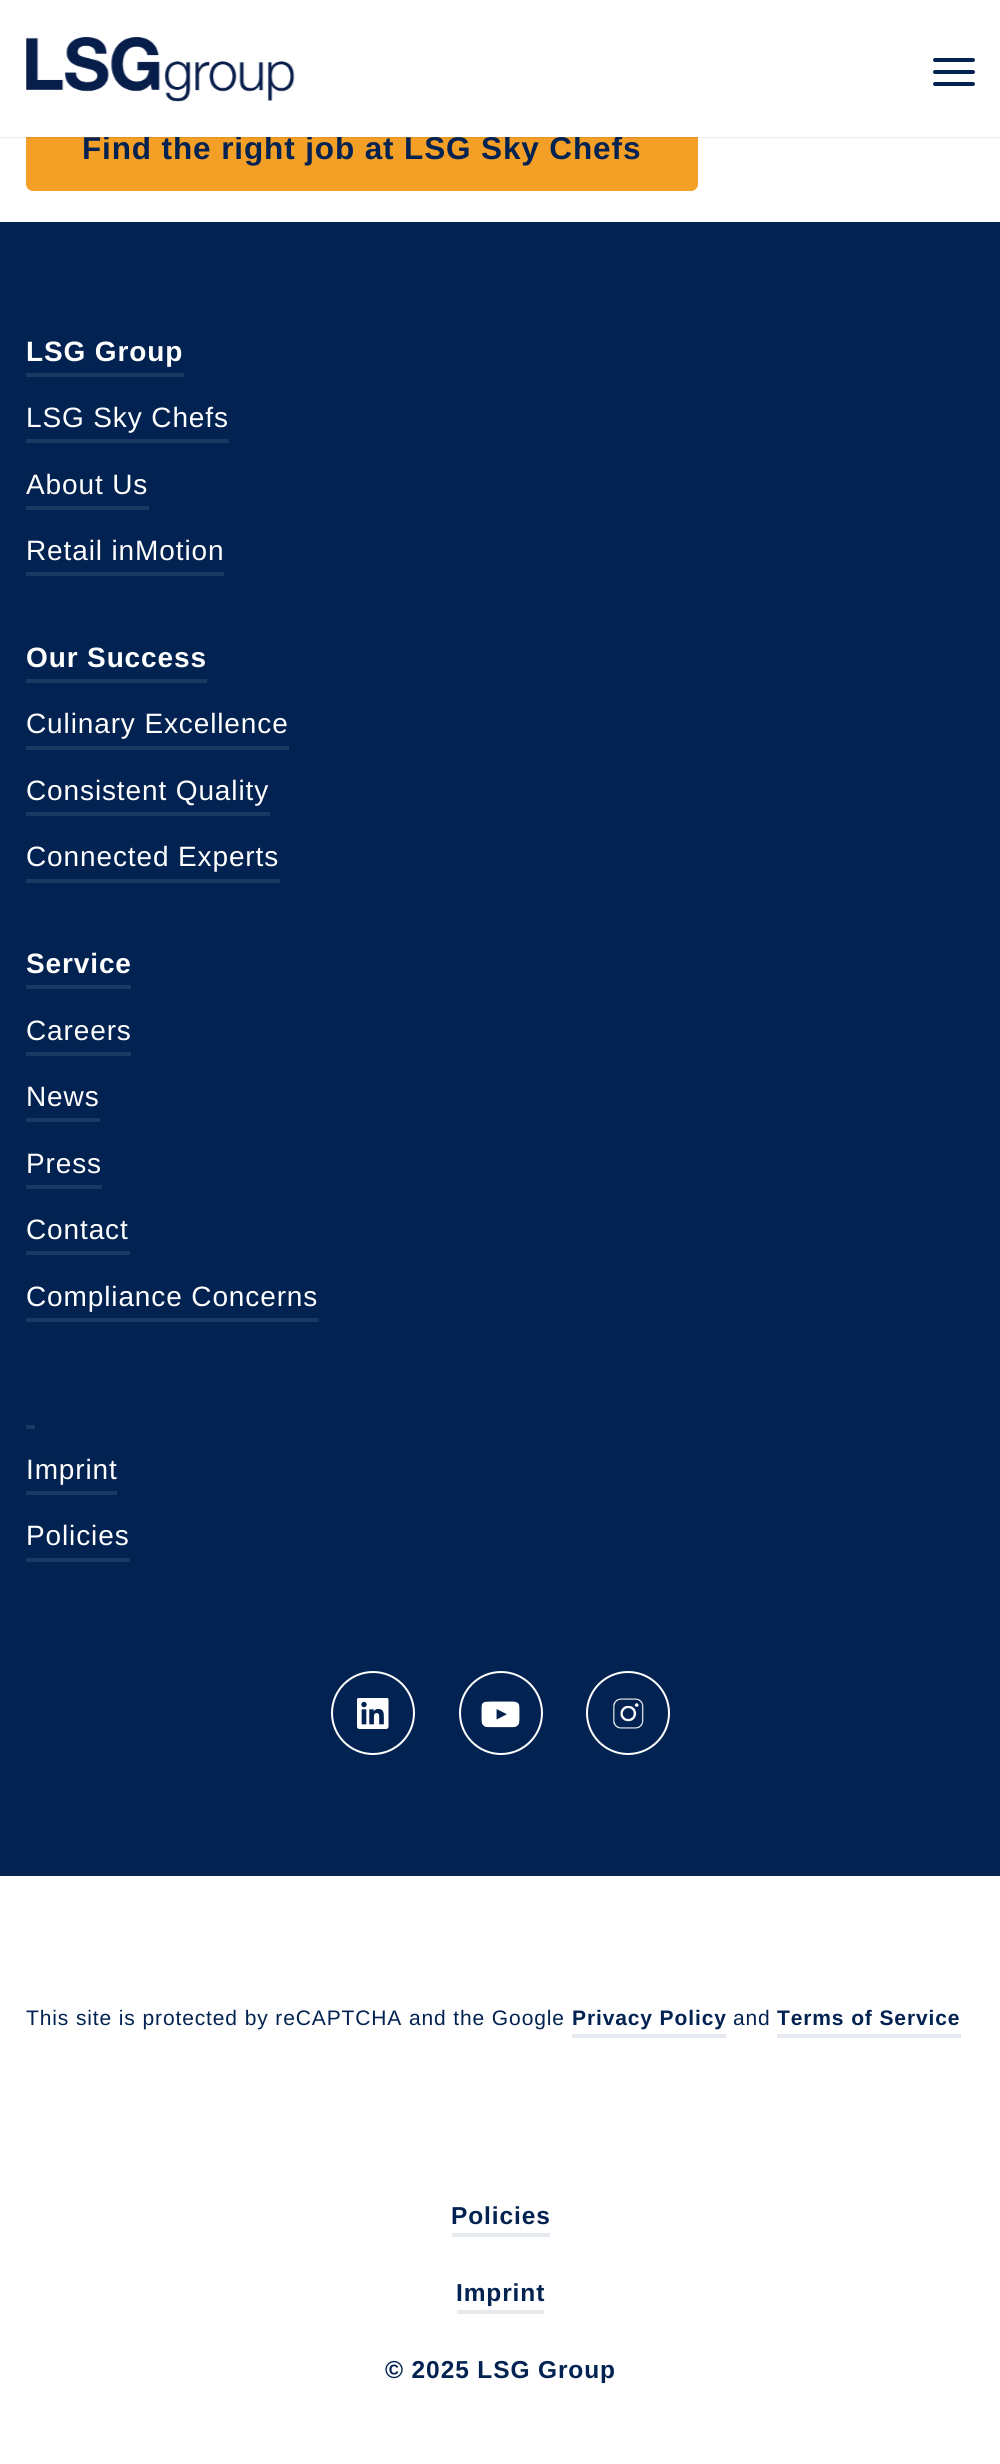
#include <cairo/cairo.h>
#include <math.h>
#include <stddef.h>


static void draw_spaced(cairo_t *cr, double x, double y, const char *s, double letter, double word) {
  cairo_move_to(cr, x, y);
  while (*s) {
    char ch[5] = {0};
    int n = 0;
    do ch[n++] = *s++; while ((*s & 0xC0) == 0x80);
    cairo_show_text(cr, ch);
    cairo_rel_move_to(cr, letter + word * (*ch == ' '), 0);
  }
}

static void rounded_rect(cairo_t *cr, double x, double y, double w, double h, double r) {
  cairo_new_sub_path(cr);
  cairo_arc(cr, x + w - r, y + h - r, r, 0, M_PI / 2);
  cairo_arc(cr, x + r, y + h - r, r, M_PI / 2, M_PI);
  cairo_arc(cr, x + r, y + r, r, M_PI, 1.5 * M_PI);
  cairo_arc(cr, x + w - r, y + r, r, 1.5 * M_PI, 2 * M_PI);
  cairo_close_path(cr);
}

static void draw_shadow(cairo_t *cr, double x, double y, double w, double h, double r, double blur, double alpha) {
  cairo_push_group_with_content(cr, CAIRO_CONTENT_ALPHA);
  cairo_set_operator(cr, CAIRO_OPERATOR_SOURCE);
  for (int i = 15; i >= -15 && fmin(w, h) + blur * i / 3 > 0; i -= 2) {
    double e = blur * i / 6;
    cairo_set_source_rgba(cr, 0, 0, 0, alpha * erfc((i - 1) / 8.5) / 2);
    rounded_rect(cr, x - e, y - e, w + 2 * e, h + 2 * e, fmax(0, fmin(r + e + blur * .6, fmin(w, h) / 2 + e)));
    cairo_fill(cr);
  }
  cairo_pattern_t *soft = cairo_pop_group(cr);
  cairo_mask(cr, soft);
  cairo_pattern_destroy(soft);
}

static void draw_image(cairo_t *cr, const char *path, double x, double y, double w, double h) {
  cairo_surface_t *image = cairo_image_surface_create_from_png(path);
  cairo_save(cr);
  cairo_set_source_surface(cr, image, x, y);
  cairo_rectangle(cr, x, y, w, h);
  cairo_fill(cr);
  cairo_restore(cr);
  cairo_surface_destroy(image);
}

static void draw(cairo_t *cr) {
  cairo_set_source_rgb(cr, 1, 1, 1);
  cairo_paint(cr);
  cairo_set_source_rgb(cr, 244 / 255.0, 159 / 255.0, 38 / 255.0);
  rounded_rect(cr, 26, 107, 672, 84, 7);
  cairo_fill(cr);
  cairo_set_source_rgb(cr, 0, 0, 0);
  draw_shadow(cr, 0, 0, 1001, 137, 0, 1, 0.2);
  cairo_set_source_rgb(cr, 2 / 255.0, 34 / 255.0, 81 / 255.0);
  cairo_rectangle(cr, 0, 222, 1000, 1654);
  cairo_fill(cr);
  cairo_set_source_rgb(cr, 27 / 255.0, 56 / 255.0, 98 / 255.0);
  cairo_rectangle(cr, 26, 373, 158, 4);
  cairo_fill(cr);
  cairo_rectangle(cr, 26, 439, 203, 4);
  cairo_fill(cr);
  cairo_rectangle(cr, 26, 506, 123, 4);
  cairo_fill(cr);
  cairo_rectangle(cr, 26, 572, 198, 4);
  cairo_fill(cr);
  cairo_rectangle(cr, 26, 679, 181, 4);
  cairo_fill(cr);
  cairo_rectangle(cr, 26, 746, 263, 4);
  cairo_fill(cr);
  cairo_rectangle(cr, 26, 812, 244, 4);
  cairo_fill(cr);
  cairo_rectangle(cr, 26, 879, 254, 4);
  cairo_fill(cr);
  cairo_rectangle(cr, 26, 985, 105, 4);
  cairo_fill(cr);
  cairo_rectangle(cr, 26, 1052, 105, 4);
  cairo_fill(cr);
  cairo_rectangle(cr, 26, 1118, 74, 4);
  cairo_fill(cr);
  cairo_rectangle(cr, 26, 1185, 76, 4);
  cairo_fill(cr);
  cairo_rectangle(cr, 26, 1251, 104, 4);
  cairo_fill(cr);
  cairo_rectangle(cr, 26, 1318, 293, 4);
  cairo_fill(cr);
  cairo_rectangle(cr, 26, 1425, 9, 4);
  cairo_fill(cr);
  cairo_rectangle(cr, 26, 1491, 91, 4);
  cairo_fill(cr);
  cairo_rectangle(cr, 26, 1558, 104, 4);
  cairo_fill(cr);
  draw_image(cr, "images/2.png", 357, 1698, 32, 31);
  cairo_arc(cr, 373, 1713, 41, 0, 2 * M_PI);
  cairo_set_source_rgb(cr, 1, 1, 1);
  cairo_stroke(cr);
  draw_image(cr, "images/3.png", 481, 1701, 39, 27);
  cairo_arc(cr, 501, 1713, 41, 0, 2 * M_PI);
  cairo_stroke(cr);
  draw_image(cr, "images/4.png", 613, 1698, 31, 31);
  cairo_arc(cr, 628, 1713, 41, 0, 2 * M_PI);
  cairo_stroke(cr);
  cairo_set_source_rgb(cr, 230 / 255.0, 233 / 255.0, 238 / 255.0);
  cairo_rectangle(cr, 572, 2034, 154, 4);
  cairo_fill(cr);
  cairo_rectangle(cr, 777, 2034, 184, 4);
  cairo_fill(cr);
  cairo_rectangle(cr, 452, 2233, 98, 4);
  cairo_fill(cr);
  cairo_rectangle(cr, 457, 2310, 87, 4);
  cairo_fill(cr);
  cairo_select_font_face(cr, "Liberation Sans", CAIRO_FONT_SLANT_NORMAL, CAIRO_FONT_WEIGHT_BOLD);
  cairo_set_font_size(cr, 31.5);
  cairo_set_source_rgb(cr, 2 / 255.0, 34 / 255.0, 81 / 255.0);
  draw_spaced(cr, 82, 159, "Find the right job at LSG Sky Chefs", 0.88, 0);
  cairo_set_source_rgb(cr, 1, 1, 1);
  cairo_rectangle(cr, 0, 0, 1000, 137);
  cairo_fill(cr);
  cairo_set_source_rgb(cr, 2 / 255.0, 34 / 255.0, 81 / 255.0);
  rounded_rect(cr, 933, 82, 42, 4, 2);
  cairo_fill(cr);
  rounded_rect(cr, 933, 70, 42, 4, 2);
  cairo_fill(cr);
  rounded_rect(cr, 933, 58, 42, 4, 2);
  cairo_fill(cr);
  draw_image(cr, "images/1.png", 26, 37, 269, 65);
  cairo_set_font_size(cr, 28);
  cairo_set_source_rgb(cr, 1, 1, 1);
  draw_spaced(cr, 26, 361, "LSG Group", 0.88, 0);
  cairo_select_font_face(cr, "Liberation Sans", CAIRO_FONT_SLANT_NORMAL, CAIRO_FONT_WEIGHT_NORMAL);
  draw_spaced(cr, 26, 427, "LSG Sky Chefs", 0.88, 0);
  draw_spaced(cr, 26, 494, "About Us", 0.88, 0);
  draw_spaced(cr, 26, 560, "Retail inMotion", 0.88, 0);
  cairo_select_font_face(cr, "Liberation Sans", CAIRO_FONT_SLANT_NORMAL, CAIRO_FONT_WEIGHT_BOLD);
  draw_spaced(cr, 26, 667, "Our Success", 0.88, 0);
  cairo_select_font_face(cr, "Liberation Sans", CAIRO_FONT_SLANT_NORMAL, CAIRO_FONT_WEIGHT_NORMAL);
  draw_spaced(cr, 26, 733, "Culinary Excellence", 0.88, 0);
  draw_spaced(cr, 26, 800, "Consistent Quality", 0.88, 0);
  draw_spaced(cr, 26, 866, "Connected Experts", 0.88, 0);
  cairo_select_font_face(cr, "Liberation Sans", CAIRO_FONT_SLANT_NORMAL, CAIRO_FONT_WEIGHT_BOLD);
  draw_spaced(cr, 26, 973, "Service", 0.88, 0);
  cairo_select_font_face(cr, "Liberation Sans", CAIRO_FONT_SLANT_NORMAL, CAIRO_FONT_WEIGHT_NORMAL);
  draw_spaced(cr, 26, 1040, "Careers", 0.88, 0);
  draw_spaced(cr, 26, 1106, "News", 0.88, 0);
  draw_spaced(cr, 26, 1173, "Press", 0.88, 0);
  draw_spaced(cr, 26, 1239, "Contact", 0.88, 0);
  draw_spaced(cr, 26, 1306, "Compliance Concerns", 0.88, 0);
  draw_spaced(cr, 26, 1479, "Imprint", 0.88, 0);
  draw_spaced(cr, 26, 1545, "Policies", 0.88, 0);
  cairo_set_font_size(cr, 21);
  cairo_set_source_rgb(cr, 2 / 255.0, 34 / 255.0, 81 / 255.0);
  draw_spaced(cr, 26, 2025, "This site is protected by reCAPTCHA and the Google", 0.88, 0);
  cairo_select_font_face(cr, "Liberation Sans", CAIRO_FONT_SLANT_NORMAL, CAIRO_FONT_WEIGHT_BOLD);
  draw_spaced(cr, 572, 2025, "Privacy Policy", 0.88, 0);
  cairo_select_font_face(cr, "Liberation Sans", CAIRO_FONT_SLANT_NORMAL, CAIRO_FONT_WEIGHT_NORMAL);
  draw_spaced(cr, 733, 2025, "and", 0.88, 0);
  cairo_select_font_face(cr, "Liberation Sans", CAIRO_FONT_SLANT_NORMAL, CAIRO_FONT_WEIGHT_BOLD);
  draw_spaced(cr, 777, 2025, "Terms of Service", 0.88, 0);
  cairo_set_font_size(cr, 24.5);
  draw_spaced(cr, 451, 2224, "Policies", 0.88, 0);
  draw_spaced(cr, 456, 2301, "Imprint", 0.88, 0);
  draw_spaced(cr, 385, 2378, "© 2025 LSG Group", 0.88, 0);
}

int main(void) {
  cairo_surface_t *surface = cairo_image_surface_create(CAIRO_FORMAT_RGB24, 1000, 2464);
  cairo_t *cr = cairo_create(surface);
  cairo_font_options_t *options = cairo_font_options_create();
  cairo_font_options_set_hint_metrics(options, CAIRO_HINT_METRICS_OFF);
  cairo_font_options_set_hint_style(options, CAIRO_HINT_STYLE_NONE);
  cairo_set_font_options(cr, options);
  cairo_set_miter_limit(cr, 4);
  draw(cr);
  cairo_surface_write_to_png(surface, "out.png");
  cairo_font_options_destroy(options);
  cairo_destroy(cr);
  cairo_surface_destroy(surface);
  return 0;
}
